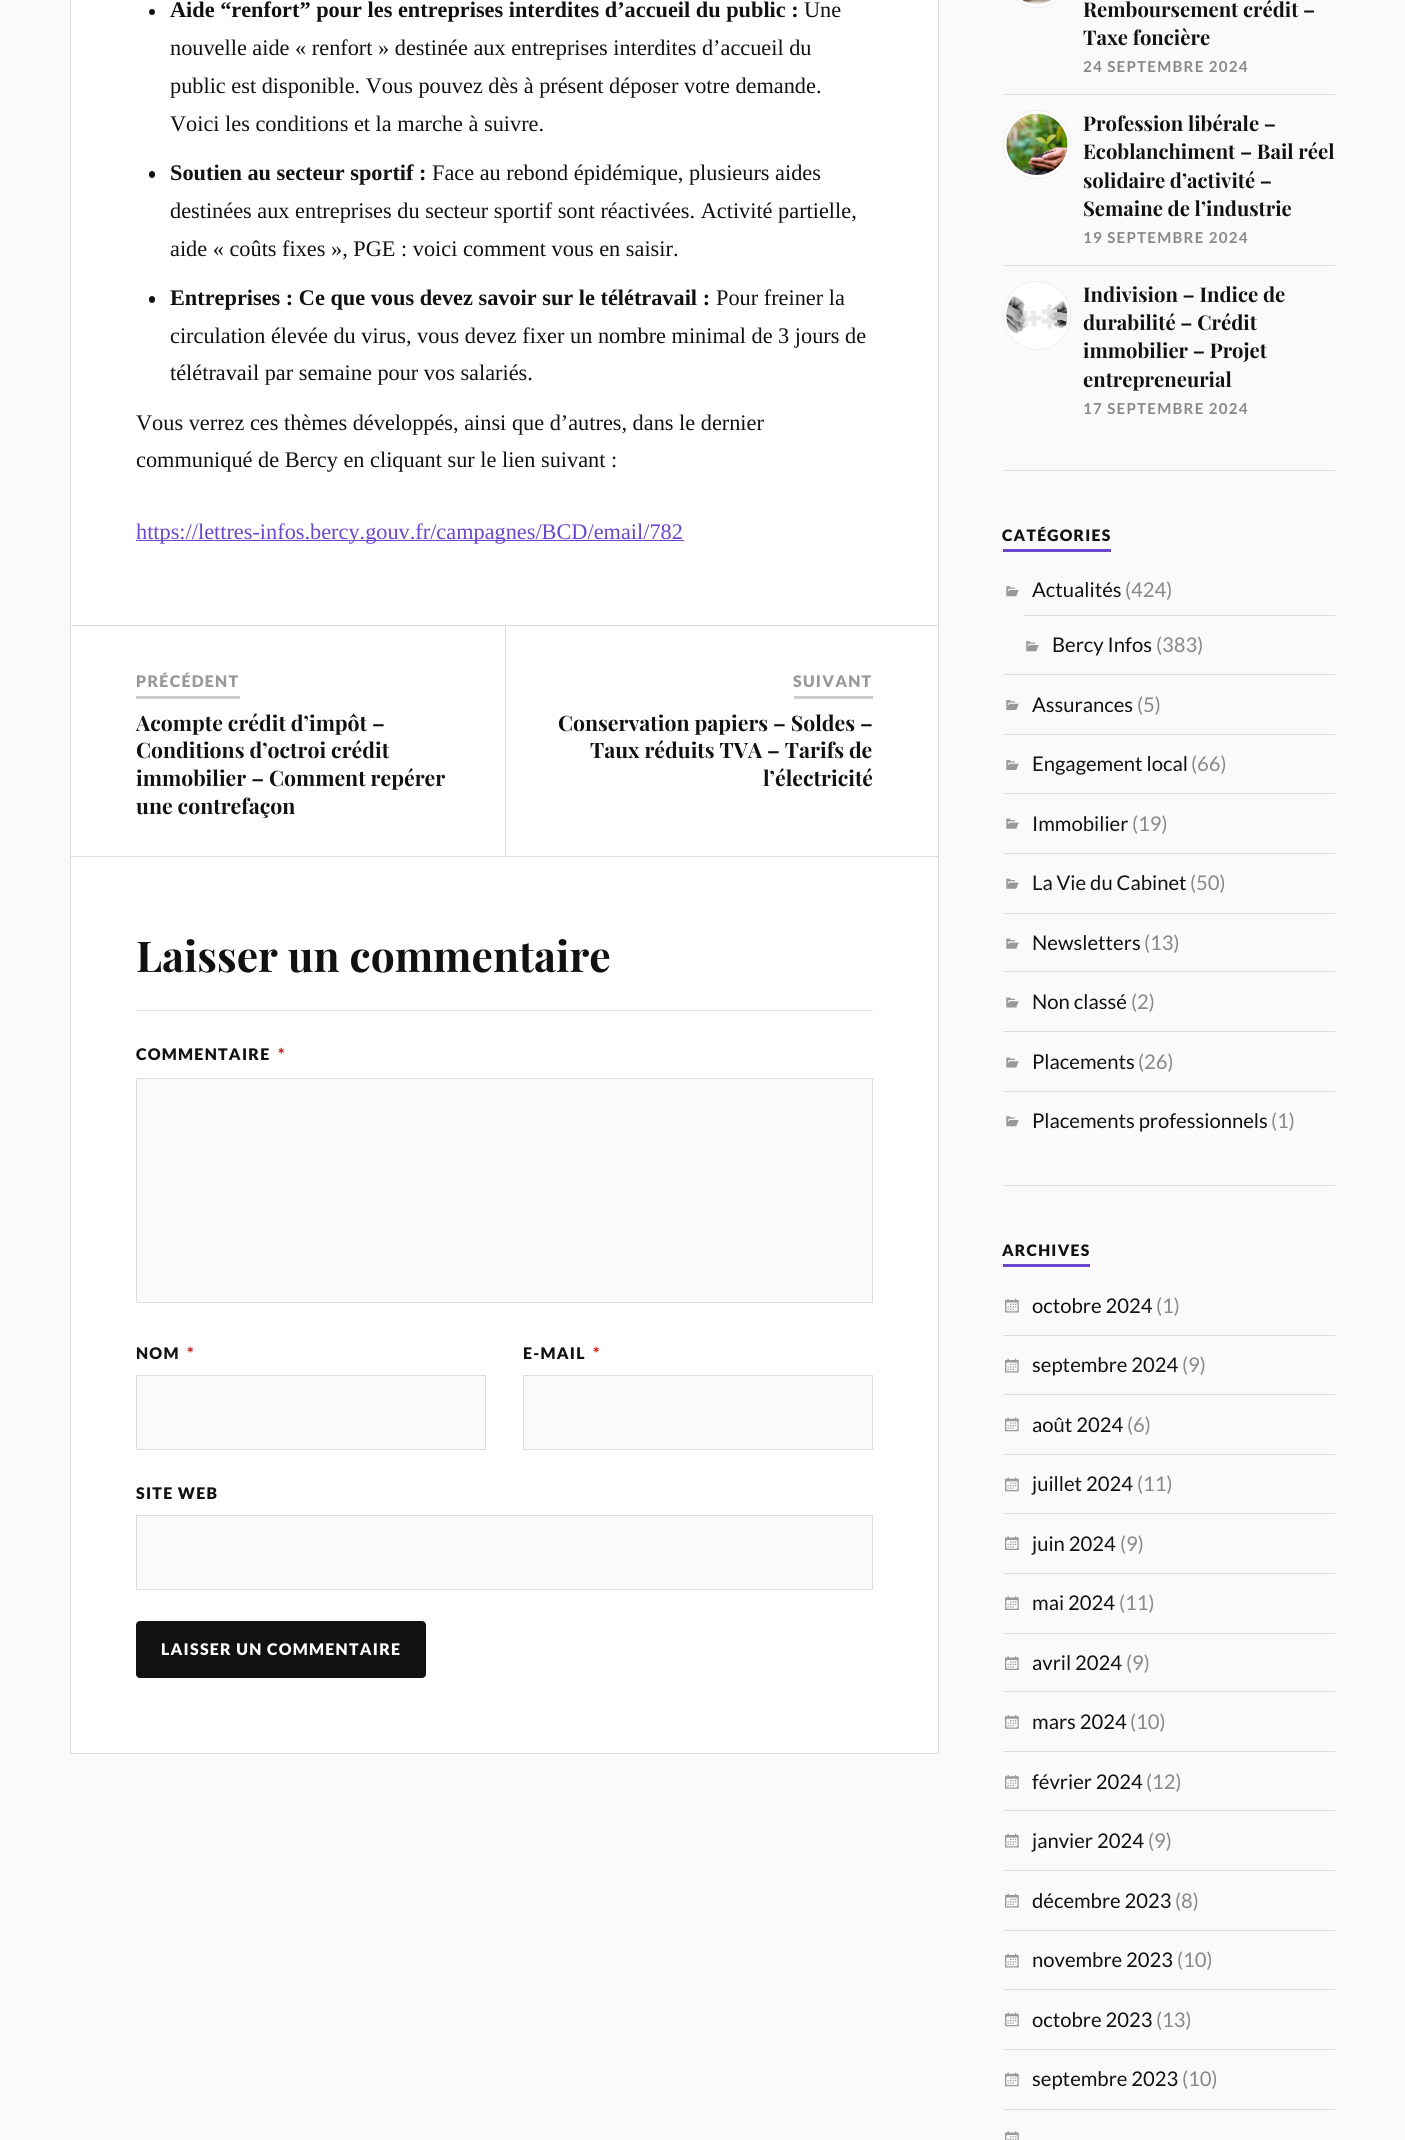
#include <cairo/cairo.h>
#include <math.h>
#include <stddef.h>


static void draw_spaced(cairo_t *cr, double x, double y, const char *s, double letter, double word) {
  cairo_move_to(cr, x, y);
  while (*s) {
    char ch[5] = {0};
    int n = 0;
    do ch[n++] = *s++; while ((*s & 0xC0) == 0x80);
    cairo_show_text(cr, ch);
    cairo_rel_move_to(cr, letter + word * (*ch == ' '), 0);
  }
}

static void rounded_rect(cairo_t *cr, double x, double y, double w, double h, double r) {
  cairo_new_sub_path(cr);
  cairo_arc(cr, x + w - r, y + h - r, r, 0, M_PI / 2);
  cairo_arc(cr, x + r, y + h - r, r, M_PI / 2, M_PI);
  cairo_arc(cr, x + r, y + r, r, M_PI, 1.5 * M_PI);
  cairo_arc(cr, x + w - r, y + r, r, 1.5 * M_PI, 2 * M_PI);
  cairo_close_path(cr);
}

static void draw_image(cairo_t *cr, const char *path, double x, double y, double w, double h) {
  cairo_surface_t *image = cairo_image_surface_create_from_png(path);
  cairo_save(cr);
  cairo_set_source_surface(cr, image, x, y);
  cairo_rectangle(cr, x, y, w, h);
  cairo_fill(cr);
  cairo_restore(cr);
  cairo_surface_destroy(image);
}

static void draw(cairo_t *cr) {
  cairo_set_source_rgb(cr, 250 / 255.0, 250 / 255.0, 250 / 255.0);
  cairo_paint(cr);
  cairo_set_source_rgb(cr, 1, 1, 1);
  cairo_rectangle(cr, 70.5, -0.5, 868, 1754);
  cairo_fill_preserve(cr);
  cairo_set_source_rgb(cr, 221 / 255.0, 221 / 255.0, 221 / 255.0);
  cairo_set_line_width(cr, 1);
  cairo_stroke(cr);
  cairo_set_source_rgb(cr, 17 / 255.0, 17 / 255.0, 17 / 255.0);
  cairo_arc(cr, 152, 12, 3, 0, 2 * M_PI);
  cairo_fill(cr);
  rounded_rect(cr, 149, 171, 6, 7, 3);
  cairo_fill(cr);
  rounded_rect(cr, 149, 296, 6, 7, 3);
  cairo_fill(cr);
  cairo_set_source_rgb(cr, 109 / 255.0, 70 / 255.0, 201 / 255.0);
  cairo_rectangle(cr, 136, 540, 548, 1);
  cairo_fill(cr);
  cairo_set_source_rgb(cr, 221 / 255.0, 221 / 255.0, 221 / 255.0);
  cairo_rectangle(cr, 71, 625, 867, 1);
  cairo_fill(cr);
  cairo_rectangle(cr, 505, 626, 1, 230);
  cairo_fill(cr);
  cairo_set_source_rgb(cr, 204 / 255.0, 204 / 255.0, 204 / 255.0);
  cairo_rectangle(cr, 136, 696, 104, 3);
  cairo_fill(cr);
  cairo_rectangle(cr, 794, 696, 79, 3);
  cairo_fill(cr);
  cairo_set_source_rgb(cr, 221 / 255.0, 221 / 255.0, 221 / 255.0);
  cairo_rectangle(cr, 71, 856, 867, 1);
  cairo_fill(cr);
  cairo_rectangle(cr, 136, 1010, 737, 1);
  cairo_fill(cr);
  cairo_set_source_rgb(cr, 250 / 255.0, 250 / 255.0, 250 / 255.0);
  cairo_rectangle(cr, 136.5, 1078.5, 736, 224);
  cairo_fill_preserve(cr);
  cairo_set_source_rgb(cr, 221 / 255.0, 221 / 255.0, 221 / 255.0);
  cairo_stroke(cr);
  cairo_set_source_rgb(cr, 250 / 255.0, 250 / 255.0, 250 / 255.0);
  cairo_rectangle(cr, 136.5, 1375.5, 349, 74);
  cairo_fill_preserve(cr);
  cairo_set_source_rgb(cr, 221 / 255.0, 221 / 255.0, 221 / 255.0);
  cairo_stroke(cr);
  cairo_set_source_rgb(cr, 250 / 255.0, 250 / 255.0, 250 / 255.0);
  cairo_rectangle(cr, 523.5, 1375.5, 349, 74);
  cairo_fill_preserve(cr);
  cairo_set_source_rgb(cr, 221 / 255.0, 221 / 255.0, 221 / 255.0);
  cairo_stroke(cr);
  cairo_set_source_rgb(cr, 250 / 255.0, 250 / 255.0, 250 / 255.0);
  cairo_rectangle(cr, 136.5, 1515.5, 736, 74);
  cairo_fill_preserve(cr);
  cairo_set_source_rgb(cr, 221 / 255.0, 221 / 255.0, 221 / 255.0);
  cairo_stroke(cr);
  cairo_set_source_rgb(cr, 17 / 255.0, 17 / 255.0, 17 / 255.0);
  rounded_rect(cr, 136, 1621, 290, 57, 4);
  cairo_fill(cr);
  cairo_set_source_rgb(cr, 221 / 255.0, 221 / 255.0, 221 / 255.0);
  cairo_rectangle(cr, 1003, 94, 332, 1);
  cairo_fill(cr);
  cairo_set_source_rgb(cr, 1, 1, 1);
  rounded_rect(cr, 1003.5, -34.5, 67, 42, 33.5);
  cairo_fill_preserve(cr);
  cairo_set_source_rgb(cr, 238 / 255.0, 238 / 255.0, 238 / 255.0);
  cairo_stroke(cr);
  draw_image(cr, "images/1.png", 1022, 0, 29, 4);
  cairo_set_source_rgb(cr, 221 / 255.0, 221 / 255.0, 221 / 255.0);
  cairo_rectangle(cr, 1003, 265, 332, 1);
  cairo_fill(cr);
  cairo_set_source_rgb(cr, 1, 1, 1);
  rounded_rect(cr, 1003.5, 110.5, 67, 68, 33.5);
  cairo_fill_preserve(cr);
  cairo_set_source_rgb(cr, 238 / 255.0, 238 / 255.0, 238 / 255.0);
  cairo_stroke(cr);
  draw_image(cr, "images/2.png", 1006, 113, 62, 62);
  cairo_set_source_rgb(cr, 1, 1, 1);
  rounded_rect(cr, 1003.5, 281.5, 67, 68, 33.5);
  cairo_fill_preserve(cr);
  cairo_set_source_rgb(cr, 238 / 255.0, 238 / 255.0, 238 / 255.0);
  cairo_stroke(cr);
  draw_image(cr, "images/3.png", 1006, 295, 62, 39);
  cairo_set_source_rgb(cr, 221 / 255.0, 221 / 255.0, 221 / 255.0);
  cairo_rectangle(cr, 1003, 470, 332, 1);
  cairo_fill(cr);
  cairo_set_source_rgb(cr, 109 / 255.0, 70 / 255.0, 201 / 255.0);
  cairo_rectangle(cr, 1003, 549, 108, 3);
  cairo_fill(cr);
  cairo_set_source_rgb(cr, 221 / 255.0, 221 / 255.0, 221 / 255.0);
  cairo_rectangle(cr, 1003, 674, 332, 1);
  cairo_fill(cr);
  draw_image(cr, "images/4.png", 1006, 586, 13, 11);
  cairo_rectangle(cr, 1023, 615, 312, 1);
  cairo_fill(cr);
  draw_image(cr, "images/4.png", 1026, 641, 13, 11);
  cairo_rectangle(cr, 1003, 734, 332, 1);
  cairo_fill(cr);
  draw_image(cr, "images/5.png", 1006, 700, 13, 10);
  cairo_rectangle(cr, 1003, 793, 332, 1);
  cairo_fill(cr);
  draw_image(cr, "images/5.png", 1006, 760, 13, 10);
  cairo_rectangle(cr, 1003, 853, 332, 1);
  cairo_fill(cr);
  draw_image(cr, "images/6.png", 1006, 818, 13, 11);
  cairo_rectangle(cr, 1003, 913, 332, 1);
  cairo_fill(cr);
  draw_image(cr, "images/6.png", 1006, 878, 13, 11);
  cairo_rectangle(cr, 1003, 971, 332, 1);
  cairo_fill(cr);
  draw_image(cr, "images/6.png", 1006, 938, 13, 11);
  cairo_rectangle(cr, 1003, 1031, 332, 1);
  cairo_fill(cr);
  draw_image(cr, "images/7.png", 1006, 997, 13, 11);
  cairo_rectangle(cr, 1003, 1091, 332, 1);
  cairo_fill(cr);
  draw_image(cr, "images/7.png", 1006, 1057, 13, 11);
  draw_image(cr, "images/4.png", 1006, 1116, 13, 11);
  cairo_rectangle(cr, 1003, 1185, 332, 1);
  cairo_fill(cr);
  cairo_set_source_rgb(cr, 109 / 255.0, 70 / 255.0, 201 / 255.0);
  cairo_rectangle(cr, 1003, 1264, 87, 3);
  cairo_fill(cr);
  cairo_set_source_rgb(cr, 221 / 255.0, 221 / 255.0, 221 / 255.0);
  cairo_rectangle(cr, 1003, 1335, 332, 1);
  cairo_fill(cr);
  draw_image(cr, "images/8.png", 1005, 1298, 14, 15);
  cairo_rectangle(cr, 1003, 1394, 332, 1);
  cairo_fill(cr);
  draw_image(cr, "images/8.png", 1005, 1358, 14, 15);
  cairo_rectangle(cr, 1003, 1454, 332, 1);
  cairo_fill(cr);
  draw_image(cr, "images/9.png", 1005, 1417, 14, 15);
  cairo_rectangle(cr, 1003, 1513, 332, 1);
  cairo_fill(cr);
  draw_image(cr, "images/9.png", 1005, 1477, 14, 15);
  cairo_rectangle(cr, 1003, 1573, 332, 1);
  cairo_fill(cr);
  draw_image(cr, "images/10.png", 1005, 1536, 14, 14);
  cairo_rectangle(cr, 1003, 1633, 332, 1);
  cairo_fill(cr);
  draw_image(cr, "images/10.png", 1005, 1596, 14, 14);
  cairo_rectangle(cr, 1003, 1691, 332, 1);
  cairo_fill(cr);
  draw_image(cr, "images/10.png", 1005, 1656, 14, 14);
  cairo_rectangle(cr, 1003, 1751, 332, 1);
  cairo_fill(cr);
  draw_image(cr, "images/11.png", 1005, 1715, 14, 14);
  cairo_rectangle(cr, 1003, 1810, 332, 1);
  cairo_fill(cr);
  draw_image(cr, "images/11.png", 1005, 1775, 14, 14);
  cairo_rectangle(cr, 1003, 1870, 332, 1);
  cairo_fill(cr);
  draw_image(cr, "images/8.png", 1005, 1833, 14, 15);
  cairo_rectangle(cr, 1003, 1930, 332, 1);
  cairo_fill(cr);
  draw_image(cr, "images/8.png", 1005, 1893, 14, 15);
  cairo_rectangle(cr, 1003, 1989, 332, 1);
  cairo_fill(cr);
  draw_image(cr, "images/8.png", 1005, 1953, 14, 15);
  cairo_rectangle(cr, 1003, 2049, 332, 1);
  cairo_fill(cr);
  draw_image(cr, "images/9.png", 1005, 2012, 14, 15);
  cairo_rectangle(cr, 1003, 2109, 332, 1);
  cairo_fill(cr);
  draw_image(cr, "images/9.png", 1005, 2072, 14, 15);
  draw_image(cr, "images/12.png", 1005, 2131, 14, 9);
  cairo_select_font_face(cr, "Liberation Serif", CAIRO_FONT_SLANT_NORMAL, CAIRO_FONT_WEIGHT_BOLD);
  cairo_set_font_size(cr, 22.3);
  cairo_set_source_rgb(cr, 17 / 255.0, 17 / 255.0, 17 / 255.0);
  cairo_move_to(cr, 170, 17);
  cairo_show_text(cr, "Aide “renfort” pour les entreprises interdites d’accueil du public :");
  cairo_select_font_face(cr, "Liberation Serif", CAIRO_FONT_SLANT_NORMAL, CAIRO_FONT_WEIGHT_NORMAL);
  cairo_move_to(cr, 804, 17);
  cairo_show_text(cr, "Une");
  cairo_move_to(cr, 170, 55);
  cairo_show_text(cr, "nouvelle aide « renfort » destinée aux entreprises interdites d’accueil du");
  cairo_move_to(cr, 170, 93);
  cairo_show_text(cr, "public est disponible. Vous pouvez dès à présent déposer votre demande.");
  cairo_move_to(cr, 170, 131);
  cairo_show_text(cr, "Voici les conditions et la marche à suivre.");
  cairo_select_font_face(cr, "Liberation Serif", CAIRO_FONT_SLANT_NORMAL, CAIRO_FONT_WEIGHT_BOLD);
  cairo_move_to(cr, 170, 180);
  cairo_show_text(cr, "Soutien au secteur sportif :");
  cairo_select_font_face(cr, "Liberation Serif", CAIRO_FONT_SLANT_NORMAL, CAIRO_FONT_WEIGHT_NORMAL);
  cairo_move_to(cr, 432, 180);
  cairo_show_text(cr, "Face au rebond épidémique, plusieurs aides");
  cairo_move_to(cr, 170, 218);
  cairo_show_text(cr, "destinées aux entreprises du secteur sportif sont réactivées. Activité partielle,");
  cairo_move_to(cr, 170, 256);
  cairo_show_text(cr, "aide « coûts fixes », PGE : voici comment vous en saisir.");
  cairo_select_font_face(cr, "Liberation Serif", CAIRO_FONT_SLANT_NORMAL, CAIRO_FONT_WEIGHT_BOLD);
  cairo_move_to(cr, 170, 305);
  cairo_show_text(cr, "Entreprises : Ce que vous devez savoir sur le télétravail :");
  cairo_select_font_face(cr, "Liberation Serif", CAIRO_FONT_SLANT_NORMAL, CAIRO_FONT_WEIGHT_NORMAL);
  cairo_move_to(cr, 716, 305);
  cairo_show_text(cr, "Pour freiner la");
  cairo_move_to(cr, 170, 343);
  cairo_show_text(cr, "circulation élevée du virus, vous devez fixer un nombre minimal de 3 jours de");
  cairo_move_to(cr, 170, 380);
  cairo_show_text(cr, "télétravail par semaine pour vos salariés.");
  cairo_move_to(cr, 136, 430);
  cairo_show_text(cr, "Vous verrez ces thèmes développés, ainsi que d’autres, dans le dernier");
  cairo_move_to(cr, 136, 467);
  cairo_show_text(cr, "communiqué de Bercy en cliquant sur le lien suivant :");
  cairo_set_source_rgb(cr, 109 / 255.0, 70 / 255.0, 201 / 255.0);
  cairo_move_to(cr, 136, 539);
  cairo_show_text(cr, "https://lettres-infos.bercy.gouv.fr/campagnes/BCD/email/782");
  cairo_select_font_face(cr, "Lato Black", CAIRO_FONT_SLANT_NORMAL, CAIRO_FONT_WEIGHT_NORMAL);
  cairo_set_font_size(cr, 16);
  cairo_set_source_rgb(cr, 153 / 255.0, 153 / 255.0, 153 / 255.0);
  draw_spaced(cr, 136, 687, "PRÉCÉDENT", 1.25, 0);
  cairo_select_font_face(cr, "Playfair Display", CAIRO_FONT_SLANT_NORMAL, CAIRO_FONT_WEIGHT_BOLD);
  cairo_set_font_size(cr, 21.25);
  cairo_set_source_rgb(cr, 17 / 255.0, 17 / 255.0, 17 / 255.0);
  cairo_move_to(cr, 136, 731);
  cairo_show_text(cr, "Acompte crédit d’impôt –");
  cairo_move_to(cr, 136, 758);
  cairo_show_text(cr, "Conditions d’octroi crédit");
  cairo_move_to(cr, 136, 786);
  cairo_show_text(cr, "immobilier – Comment repérer");
  cairo_move_to(cr, 136, 814);
  cairo_show_text(cr, "une contrefaçon");
  cairo_select_font_face(cr, "Lato Black", CAIRO_FONT_SLANT_NORMAL, CAIRO_FONT_WEIGHT_NORMAL);
  cairo_set_font_size(cr, 16);
  cairo_set_source_rgb(cr, 153 / 255.0, 153 / 255.0, 153 / 255.0);
  draw_spaced(cr, 793, 687, "SUIVANT", 1.25, 0);
  cairo_select_font_face(cr, "Playfair Display", CAIRO_FONT_SLANT_NORMAL, CAIRO_FONT_WEIGHT_BOLD);
  cairo_set_font_size(cr, 21.25);
  cairo_set_source_rgb(cr, 17 / 255.0, 17 / 255.0, 17 / 255.0);
  cairo_move_to(cr, 558, 731);
  cairo_show_text(cr, "Conservation papiers – Soldes –");
  cairo_move_to(cr, 590, 758);
  cairo_show_text(cr, "Taux réduits TVA – Tarifs de");
  cairo_move_to(cr, 763, 786);
  cairo_show_text(cr, "l’électricité");
  cairo_set_font_size(cr, 42.5);
  cairo_move_to(cr, 136, 972);
  cairo_show_text(cr, "Laisser un commentaire");
  cairo_select_font_face(cr, "Lato Black", CAIRO_FONT_SLANT_NORMAL, CAIRO_FONT_WEIGHT_NORMAL);
  cairo_set_font_size(cr, 16);
  draw_spaced(cr, 136, 1060, "COMMENTAIRE", 1.25, 0);
  cairo_set_source_rgb(cr, 202 / 255.0, 32 / 255.0, 23 / 255.0);
  draw_spaced(cr, 278, 1060, "*", 1.25, 0);
  cairo_set_source_rgb(cr, 17 / 255.0, 17 / 255.0, 17 / 255.0);
  draw_spaced(cr, 136, 1359, "NOM", 1.25, 0);
  cairo_set_source_rgb(cr, 202 / 255.0, 32 / 255.0, 23 / 255.0);
  draw_spaced(cr, 187, 1359, "*", 1.25, 0);
  cairo_set_source_rgb(cr, 17 / 255.0, 17 / 255.0, 17 / 255.0);
  draw_spaced(cr, 523, 1359, "E-MAIL", 1.25, 0);
  cairo_set_source_rgb(cr, 202 / 255.0, 32 / 255.0, 23 / 255.0);
  draw_spaced(cr, 593, 1359, "*", 1.25, 0);
  cairo_set_source_rgb(cr, 17 / 255.0, 17 / 255.0, 17 / 255.0);
  draw_spaced(cr, 136, 1499, "SITE WEB", 1.25, 0);
  cairo_set_source_rgb(cr, 1, 1, 1);
  draw_spaced(cr, 161, 1655, "LAISSER UN COMMENTAIRE", 1.25, 0);
  cairo_select_font_face(cr, "Playfair Display", CAIRO_FONT_SLANT_NORMAL, CAIRO_FONT_WEIGHT_BOLD);
  cairo_set_font_size(cr, 20.25);
  cairo_set_source_rgb(cr, 17 / 255.0, 17 / 255.0, 17 / 255.0);
  cairo_move_to(cr, 1083, 17);
  cairo_show_text(cr, "Remboursement crédit –");
  cairo_move_to(cr, 1083, 45);
  cairo_show_text(cr, "Taxe foncière");
  cairo_select_font_face(cr, "Lato", CAIRO_FONT_SLANT_NORMAL, CAIRO_FONT_WEIGHT_BOLD);
  cairo_set_font_size(cr, 15.1);
  cairo_set_source_rgb(cr, 136 / 255.0, 136 / 255.0, 136 / 255.0);
  draw_spaced(cr, 1083, 72, "24 SEPTEMBRE 2024", 1.25, 0);
  cairo_select_font_face(cr, "Playfair Display", CAIRO_FONT_SLANT_NORMAL, CAIRO_FONT_WEIGHT_BOLD);
  cairo_set_font_size(cr, 20.25);
  cairo_set_source_rgb(cr, 17 / 255.0, 17 / 255.0, 17 / 255.0);
  cairo_move_to(cr, 1083, 131);
  cairo_show_text(cr, "Profession libérale –");
  cairo_move_to(cr, 1083, 159);
  cairo_show_text(cr, "Ecoblanchiment – Bail réel");
  cairo_move_to(cr, 1083, 188);
  cairo_show_text(cr, "solidaire d’activité –");
  cairo_move_to(cr, 1083, 216);
  cairo_show_text(cr, "Semaine de l’industrie");
  cairo_select_font_face(cr, "Lato", CAIRO_FONT_SLANT_NORMAL, CAIRO_FONT_WEIGHT_BOLD);
  cairo_set_font_size(cr, 15.1);
  cairo_set_source_rgb(cr, 136 / 255.0, 136 / 255.0, 136 / 255.0);
  draw_spaced(cr, 1083, 243, "19 SEPTEMBRE 2024", 1.25, 0);
  cairo_select_font_face(cr, "Playfair Display", CAIRO_FONT_SLANT_NORMAL, CAIRO_FONT_WEIGHT_BOLD);
  cairo_set_font_size(cr, 20.25);
  cairo_set_source_rgb(cr, 17 / 255.0, 17 / 255.0, 17 / 255.0);
  cairo_move_to(cr, 1083, 302);
  cairo_show_text(cr, "Indivision – Indice de");
  cairo_move_to(cr, 1083, 330);
  cairo_show_text(cr, "durabilité – Crédit");
  cairo_move_to(cr, 1083, 358);
  cairo_show_text(cr, "immobilier – Projet");
  cairo_move_to(cr, 1083, 387);
  cairo_show_text(cr, "entrepreneurial");
  cairo_select_font_face(cr, "Lato", CAIRO_FONT_SLANT_NORMAL, CAIRO_FONT_WEIGHT_BOLD);
  cairo_set_font_size(cr, 15.1);
  cairo_set_source_rgb(cr, 136 / 255.0, 136 / 255.0, 136 / 255.0);
  draw_spaced(cr, 1083, 414, "17 SEPTEMBRE 2024", 1.25, 0);
  cairo_select_font_face(cr, "Lato Black", CAIRO_FONT_SLANT_NORMAL, CAIRO_FONT_WEIGHT_NORMAL);
  cairo_set_font_size(cr, 15.75);
  cairo_set_source_rgb(cr, 17 / 255.0, 17 / 255.0, 17 / 255.0);
  draw_spaced(cr, 1002, 541, "CATÉGORIES", 1.25, 0);
  cairo_select_font_face(cr, "Lato", CAIRO_FONT_SLANT_NORMAL, CAIRO_FONT_WEIGHT_NORMAL);
  cairo_set_font_size(cr, 20.25);
  cairo_move_to(cr, 1032, 597);
  cairo_show_text(cr, "Actualités");
  cairo_set_source_rgb(cr, 136 / 255.0, 136 / 255.0, 136 / 255.0);
  cairo_move_to(cr, 1125, 597);
  cairo_show_text(cr, "(424)");
  cairo_set_source_rgb(cr, 17 / 255.0, 17 / 255.0, 17 / 255.0);
  cairo_move_to(cr, 1052, 652);
  cairo_show_text(cr, "Bercy Infos");
  cairo_set_source_rgb(cr, 136 / 255.0, 136 / 255.0, 136 / 255.0);
  cairo_move_to(cr, 1156, 652);
  cairo_show_text(cr, "(383)");
  cairo_set_source_rgb(cr, 17 / 255.0, 17 / 255.0, 17 / 255.0);
  cairo_move_to(cr, 1032, 712);
  cairo_show_text(cr, "Assurances");
  cairo_set_source_rgb(cr, 136 / 255.0, 136 / 255.0, 136 / 255.0);
  cairo_move_to(cr, 1137, 712);
  cairo_show_text(cr, "(5)");
  cairo_set_source_rgb(cr, 17 / 255.0, 17 / 255.0, 17 / 255.0);
  cairo_move_to(cr, 1032, 771);
  cairo_show_text(cr, "Engagement local");
  cairo_set_source_rgb(cr, 136 / 255.0, 136 / 255.0, 136 / 255.0);
  cairo_move_to(cr, 1191, 771);
  cairo_show_text(cr, "(66)");
  cairo_set_source_rgb(cr, 17 / 255.0, 17 / 255.0, 17 / 255.0);
  cairo_move_to(cr, 1032, 831);
  cairo_show_text(cr, "Immobilier");
  cairo_set_source_rgb(cr, 136 / 255.0, 136 / 255.0, 136 / 255.0);
  cairo_move_to(cr, 1132, 831);
  cairo_show_text(cr, "(19)");
  cairo_set_source_rgb(cr, 17 / 255.0, 17 / 255.0, 17 / 255.0);
  cairo_move_to(cr, 1032, 890);
  cairo_show_text(cr, "La Vie du Cabinet");
  cairo_set_source_rgb(cr, 136 / 255.0, 136 / 255.0, 136 / 255.0);
  cairo_move_to(cr, 1190, 890);
  cairo_show_text(cr, "(50)");
  cairo_set_source_rgb(cr, 17 / 255.0, 17 / 255.0, 17 / 255.0);
  cairo_move_to(cr, 1032, 950);
  cairo_show_text(cr, "Newsletters");
  cairo_set_source_rgb(cr, 136 / 255.0, 136 / 255.0, 136 / 255.0);
  cairo_move_to(cr, 1144, 950);
  cairo_show_text(cr, "(13)");
  cairo_set_source_rgb(cr, 17 / 255.0, 17 / 255.0, 17 / 255.0);
  cairo_move_to(cr, 1032, 1009);
  cairo_show_text(cr, "Non classé");
  cairo_set_source_rgb(cr, 136 / 255.0, 136 / 255.0, 136 / 255.0);
  cairo_move_to(cr, 1131, 1009);
  cairo_show_text(cr, "(2)");
  cairo_set_source_rgb(cr, 17 / 255.0, 17 / 255.0, 17 / 255.0);
  cairo_move_to(cr, 1032, 1069);
  cairo_show_text(cr, "Placements");
  cairo_set_source_rgb(cr, 136 / 255.0, 136 / 255.0, 136 / 255.0);
  cairo_move_to(cr, 1138, 1069);
  cairo_show_text(cr, "(26)");
  cairo_set_source_rgb(cr, 17 / 255.0, 17 / 255.0, 17 / 255.0);
  cairo_move_to(cr, 1032, 1128);
  cairo_show_text(cr, "Placements professionnels");
  cairo_set_source_rgb(cr, 136 / 255.0, 136 / 255.0, 136 / 255.0);
  cairo_move_to(cr, 1271, 1128);
  cairo_show_text(cr, "(1)");
  cairo_select_font_face(cr, "Lato Black", CAIRO_FONT_SLANT_NORMAL, CAIRO_FONT_WEIGHT_NORMAL);
  cairo_set_font_size(cr, 15.75);
  cairo_set_source_rgb(cr, 17 / 255.0, 17 / 255.0, 17 / 255.0);
  draw_spaced(cr, 1002, 1256, "ARCHIVES", 1.25, 0);
  cairo_select_font_face(cr, "Lato", CAIRO_FONT_SLANT_NORMAL, CAIRO_FONT_WEIGHT_NORMAL);
  cairo_set_font_size(cr, 20.25);
  cairo_move_to(cr, 1032, 1313);
  cairo_show_text(cr, "octobre 2024");
  cairo_set_source_rgb(cr, 136 / 255.0, 136 / 255.0, 136 / 255.0);
  cairo_move_to(cr, 1156, 1313);
  cairo_show_text(cr, "(1)");
  cairo_set_source_rgb(cr, 17 / 255.0, 17 / 255.0, 17 / 255.0);
  cairo_move_to(cr, 1032, 1372);
  cairo_show_text(cr, "septembre 2024");
  cairo_set_source_rgb(cr, 136 / 255.0, 136 / 255.0, 136 / 255.0);
  cairo_move_to(cr, 1182, 1372);
  cairo_show_text(cr, "(9)");
  cairo_set_source_rgb(cr, 17 / 255.0, 17 / 255.0, 17 / 255.0);
  cairo_move_to(cr, 1032, 1432);
  cairo_show_text(cr, "août 2024");
  cairo_set_source_rgb(cr, 136 / 255.0, 136 / 255.0, 136 / 255.0);
  cairo_move_to(cr, 1127, 1432);
  cairo_show_text(cr, "(6)");
  cairo_set_source_rgb(cr, 17 / 255.0, 17 / 255.0, 17 / 255.0);
  cairo_move_to(cr, 1032, 1491);
  cairo_show_text(cr, "juillet 2024");
  cairo_set_source_rgb(cr, 136 / 255.0, 136 / 255.0, 136 / 255.0);
  cairo_move_to(cr, 1137, 1491);
  cairo_show_text(cr, "(11)");
  cairo_set_source_rgb(cr, 17 / 255.0, 17 / 255.0, 17 / 255.0);
  cairo_move_to(cr, 1032, 1551);
  cairo_show_text(cr, "juin 2024");
  cairo_set_source_rgb(cr, 136 / 255.0, 136 / 255.0, 136 / 255.0);
  cairo_move_to(cr, 1120, 1551);
  cairo_show_text(cr, "(9)");
  cairo_set_source_rgb(cr, 17 / 255.0, 17 / 255.0, 17 / 255.0);
  cairo_move_to(cr, 1032, 1610);
  cairo_show_text(cr, "mai 2024");
  cairo_set_source_rgb(cr, 136 / 255.0, 136 / 255.0, 136 / 255.0);
  cairo_move_to(cr, 1119, 1610);
  cairo_show_text(cr, "(11)");
  cairo_set_source_rgb(cr, 17 / 255.0, 17 / 255.0, 17 / 255.0);
  cairo_move_to(cr, 1032, 1670);
  cairo_show_text(cr, "avril 2024");
  cairo_set_source_rgb(cr, 136 / 255.0, 136 / 255.0, 136 / 255.0);
  cairo_move_to(cr, 1126, 1670);
  cairo_show_text(cr, "(9)");
  cairo_set_source_rgb(cr, 17 / 255.0, 17 / 255.0, 17 / 255.0);
  cairo_move_to(cr, 1032, 1729);
  cairo_show_text(cr, "mars 2024");
  cairo_set_source_rgb(cr, 136 / 255.0, 136 / 255.0, 136 / 255.0);
  cairo_move_to(cr, 1130, 1729);
  cairo_show_text(cr, "(10)");
  cairo_set_source_rgb(cr, 17 / 255.0, 17 / 255.0, 17 / 255.0);
  cairo_move_to(cr, 1032, 1789);
  cairo_show_text(cr, "février 2024");
  cairo_set_source_rgb(cr, 136 / 255.0, 136 / 255.0, 136 / 255.0);
  cairo_move_to(cr, 1146, 1789);
  cairo_show_text(cr, "(12)");
  cairo_set_source_rgb(cr, 17 / 255.0, 17 / 255.0, 17 / 255.0);
  cairo_move_to(cr, 1032, 1848);
  cairo_show_text(cr, "janvier 2024");
  cairo_set_source_rgb(cr, 136 / 255.0, 136 / 255.0, 136 / 255.0);
  cairo_move_to(cr, 1148, 1848);
  cairo_show_text(cr, "(9)");
  cairo_set_source_rgb(cr, 17 / 255.0, 17 / 255.0, 17 / 255.0);
  cairo_move_to(cr, 1032, 1908);
  cairo_show_text(cr, "décembre 2023");
  cairo_set_source_rgb(cr, 136 / 255.0, 136 / 255.0, 136 / 255.0);
  cairo_move_to(cr, 1175, 1908);
  cairo_show_text(cr, "(8)");
  cairo_set_source_rgb(cr, 17 / 255.0, 17 / 255.0, 17 / 255.0);
  cairo_move_to(cr, 1032, 1967);
  cairo_show_text(cr, "novembre 2023");
  cairo_set_source_rgb(cr, 136 / 255.0, 136 / 255.0, 136 / 255.0);
  cairo_move_to(cr, 1177, 1967);
  cairo_show_text(cr, "(10)");
  cairo_set_source_rgb(cr, 17 / 255.0, 17 / 255.0, 17 / 255.0);
  cairo_move_to(cr, 1032, 2027);
  cairo_show_text(cr, "octobre 2023");
  cairo_set_source_rgb(cr, 136 / 255.0, 136 / 255.0, 136 / 255.0);
  cairo_move_to(cr, 1156, 2027);
  cairo_show_text(cr, "(13)");
  cairo_set_source_rgb(cr, 17 / 255.0, 17 / 255.0, 17 / 255.0);
  cairo_move_to(cr, 1032, 2086);
  cairo_show_text(cr, "septembre 2023");
  cairo_set_source_rgb(cr, 136 / 255.0, 136 / 255.0, 136 / 255.0);
  cairo_move_to(cr, 1182, 2086);
  cairo_show_text(cr, "(10)");
}

int main(void) {
  cairo_surface_t *surface = cairo_image_surface_create(CAIRO_FORMAT_RGB24, 1405, 2140);
  cairo_t *cr = cairo_create(surface);
  cairo_font_options_t *options = cairo_font_options_create();
  cairo_font_options_set_hint_metrics(options, CAIRO_HINT_METRICS_OFF);
  cairo_font_options_set_hint_style(options, CAIRO_HINT_STYLE_NONE);
  cairo_set_font_options(cr, options);
  cairo_set_miter_limit(cr, 4);
  draw(cr);
  cairo_surface_write_to_png(surface, "out.png");
  cairo_font_options_destroy(options);
  cairo_destroy(cr);
  cairo_surface_destroy(surface);
  return 0;
}
